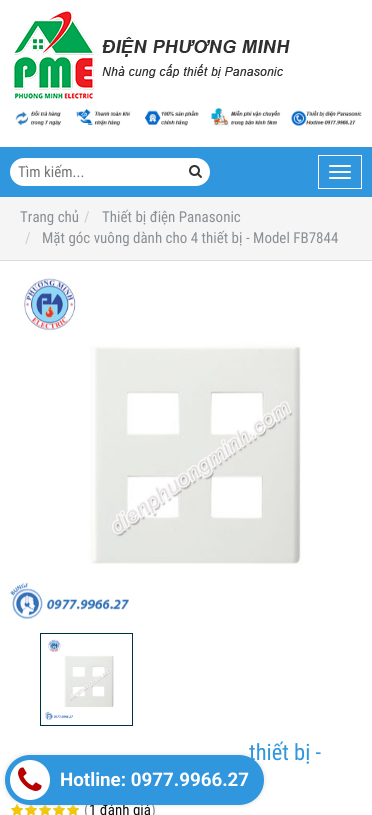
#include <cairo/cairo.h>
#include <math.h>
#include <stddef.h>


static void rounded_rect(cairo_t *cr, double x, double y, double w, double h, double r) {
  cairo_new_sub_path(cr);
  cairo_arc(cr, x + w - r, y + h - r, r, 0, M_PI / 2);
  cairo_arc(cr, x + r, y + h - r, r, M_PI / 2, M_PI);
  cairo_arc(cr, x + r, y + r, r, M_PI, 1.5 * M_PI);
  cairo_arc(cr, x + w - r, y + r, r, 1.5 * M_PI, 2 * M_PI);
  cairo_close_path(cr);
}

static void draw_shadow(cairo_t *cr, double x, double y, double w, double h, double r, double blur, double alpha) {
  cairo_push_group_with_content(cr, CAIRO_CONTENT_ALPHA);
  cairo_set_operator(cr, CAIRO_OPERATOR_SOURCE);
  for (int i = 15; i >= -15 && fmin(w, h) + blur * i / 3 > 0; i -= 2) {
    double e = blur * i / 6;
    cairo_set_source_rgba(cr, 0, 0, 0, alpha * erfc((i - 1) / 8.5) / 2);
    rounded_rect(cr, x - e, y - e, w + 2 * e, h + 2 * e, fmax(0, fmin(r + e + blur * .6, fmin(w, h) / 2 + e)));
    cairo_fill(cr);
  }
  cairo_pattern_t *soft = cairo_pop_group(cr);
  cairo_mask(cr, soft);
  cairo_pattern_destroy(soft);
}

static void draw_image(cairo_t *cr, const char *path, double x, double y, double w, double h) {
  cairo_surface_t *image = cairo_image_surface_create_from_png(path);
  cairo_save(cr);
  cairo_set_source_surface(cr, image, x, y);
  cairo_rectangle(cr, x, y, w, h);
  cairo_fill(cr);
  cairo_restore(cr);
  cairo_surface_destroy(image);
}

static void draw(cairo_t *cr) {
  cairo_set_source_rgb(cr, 1, 1, 1);
  cairo_paint(cr);
  draw_image(cr, "images/1.png", 13, 10, 277, 89);
  draw_image(cr, "images/2.png", 15, 108, 347, 18);
  cairo_set_source_rgb(cr, 48 / 255.0, 150 / 255.0, 222 / 255.0);
  cairo_rectangle(cr, 0, 147, 372, 50);
  cairo_fill(cr);
  cairo_set_source_rgb(cr, 1, 1, 1);
  rounded_rect(cr, 10, 158, 200, 28, 14);
  cairo_fill(cr);
  draw_image(cr, "images/3.png", 189, 165, 13, 13);
  cairo_rectangle(cr, 318.5, 155.5, 43, 33);
  cairo_set_line_width(cr, 1);
  cairo_stroke(cr);
  rounded_rect(cr, 329, 165, 22, 2, 1);
  cairo_fill(cr);
  rounded_rect(cr, 329, 171, 22, 2, 1);
  cairo_fill(cr);
  rounded_rect(cr, 329, 177, 22, 2, 1);
  cairo_fill(cr);
  cairo_set_source_rgb(cr, 245 / 255.0, 245 / 255.0, 245 / 255.0);
  cairo_rectangle(cr, 0, 197, 372, 63);
  cairo_fill(cr);
  cairo_set_source_rgb(cr, 221 / 255.0, 221 / 255.0, 221 / 255.0);
  cairo_rectangle(cr, 0, 260, 372, 1);
  cairo_fill(cr);
  draw_image(cr, "images/4.png", 10, 278, 292, 341);
  cairo_rectangle(cr, 40.5, 633.5, 92, 92);
  cairo_set_source_rgb(cr, 0, 48 / 255.0, 69 / 255.0);
  cairo_stroke(cr);
  draw_image(cr, "images/5.png", 45, 639, 69, 82);
  draw_image(cr, "images/6.png", 11, 804, 12, 11);
  draw_image(cr, "images/7.png", 11, 804, 12, 11);
  draw_image(cr, "images/9.png", 25, 805, 12, 10);
  draw_image(cr, "images/8.png", 25, 805, 12, 10);
  draw_image(cr, "images/9.png", 39, 805, 12, 10);
  draw_image(cr, "images/8.png", 39, 805, 12, 10);
  draw_image(cr, "images/9.png", 53, 805, 12, 10);
  draw_image(cr, "images/8.png", 53, 805, 12, 10);
  draw_image(cr, "images/9.png", 67, 805, 12, 10);
  draw_image(cr, "images/8.png", 67, 805, 12, 10);
  cairo_set_source_rgb(cr, 221 / 255.0, 221 / 255.0, 221 / 255.0);
  draw_shadow(cr, 5, 755, 259, 50, 25, 2.5, 1);
  cairo_select_font_face(cr, "Roboto Condensed", CAIRO_FONT_SLANT_NORMAL, CAIRO_FONT_WEIGHT_NORMAL);
  cairo_set_font_size(cr, 15);
  cairo_set_source_rgb(cr, 117 / 255.0, 117 / 255.0, 117 / 255.0);
  cairo_move_to(cr, 18, 177);
  cairo_show_text(cr, "Tìm kiếm...");
  cairo_set_source_rgb(cr, 137 / 255.0, 143 / 255.0, 148 / 255.0);
  cairo_move_to(cr, 20, 222);
  cairo_show_text(cr, "Trang chủ");
  cairo_set_source_rgb(cr, 204 / 255.0, 204 / 255.0, 204 / 255.0);
  cairo_move_to(cr, 84, 222);
  cairo_show_text(cr, "/");
  cairo_set_source_rgb(cr, 137 / 255.0, 143 / 255.0, 148 / 255.0);
  cairo_move_to(cr, 102, 222);
  cairo_show_text(cr, "Thiết bị điện Panasonic");
  cairo_set_source_rgb(cr, 204 / 255.0, 204 / 255.0, 204 / 255.0);
  cairo_move_to(cr, 25, 243);
  cairo_show_text(cr, "/");
  cairo_set_source_rgb(cr, 137 / 255.0, 143 / 255.0, 148 / 255.0);
  cairo_move_to(cr, 42, 243);
  cairo_show_text(cr, "Mặt góc vuông dành cho 4 thiết bị - Model FB7844");
  cairo_set_font_size(cr, 22.5);
  cairo_set_source_rgb(cr, 48 / 255.0, 150 / 255.0, 222 / 255.0);
  cairo_move_to(cr, 249, 760);
  cairo_show_text(cr, "thiết bị -");
  cairo_set_font_size(cr, 15);
  cairo_set_source_rgb(cr, 136 / 255.0, 136 / 255.0, 136 / 255.0);
  cairo_move_to(cr, 84, 815);
  cairo_show_text(cr, "(");
  cairo_set_source_rgb(cr, 17 / 255.0, 17 / 255.0, 17 / 255.0);
  cairo_move_to(cr, 89, 815);
  cairo_show_text(cr, "1 đánh giá");
  cairo_set_source_rgb(cr, 136 / 255.0, 136 / 255.0, 136 / 255.0);
  cairo_move_to(cr, 151, 815);
  cairo_show_text(cr, ")");
  cairo_set_source_rgb(cr, 48 / 255.0, 150 / 255.0, 222 / 255.0);
  rounded_rect(cr, 5, 755, 259, 50, 25);
  cairo_fill(cr);
  cairo_set_source_rgb(cr, 1, 1, 1);
  cairo_arc(cr, 30, 780, 20, 0, 2 * M_PI);
  cairo_fill(cr);
  draw_image(cr, "images/10.png", 18, 767, 24, 24);
  cairo_select_font_face(cr, "Roboto", CAIRO_FONT_SLANT_NORMAL, CAIRO_FONT_WEIGHT_BOLD);
  cairo_set_font_size(cr, 18.75);
  cairo_move_to(cr, 60, 786);
  cairo_show_text(cr, "Hotline: 0977.9966.27");
}

int main(void) {
  cairo_surface_t *surface = cairo_image_surface_create(CAIRO_FORMAT_RGB24, 372, 815);
  cairo_t *cr = cairo_create(surface);
  cairo_font_options_t *options = cairo_font_options_create();
  cairo_font_options_set_hint_metrics(options, CAIRO_HINT_METRICS_OFF);
  cairo_font_options_set_hint_style(options, CAIRO_HINT_STYLE_NONE);
  cairo_set_font_options(cr, options);
  cairo_set_miter_limit(cr, 4);
  draw(cr);
  cairo_surface_write_to_png(surface, "out.png");
  cairo_font_options_destroy(options);
  cairo_destroy(cr);
  cairo_surface_destroy(surface);
  return 0;
}
